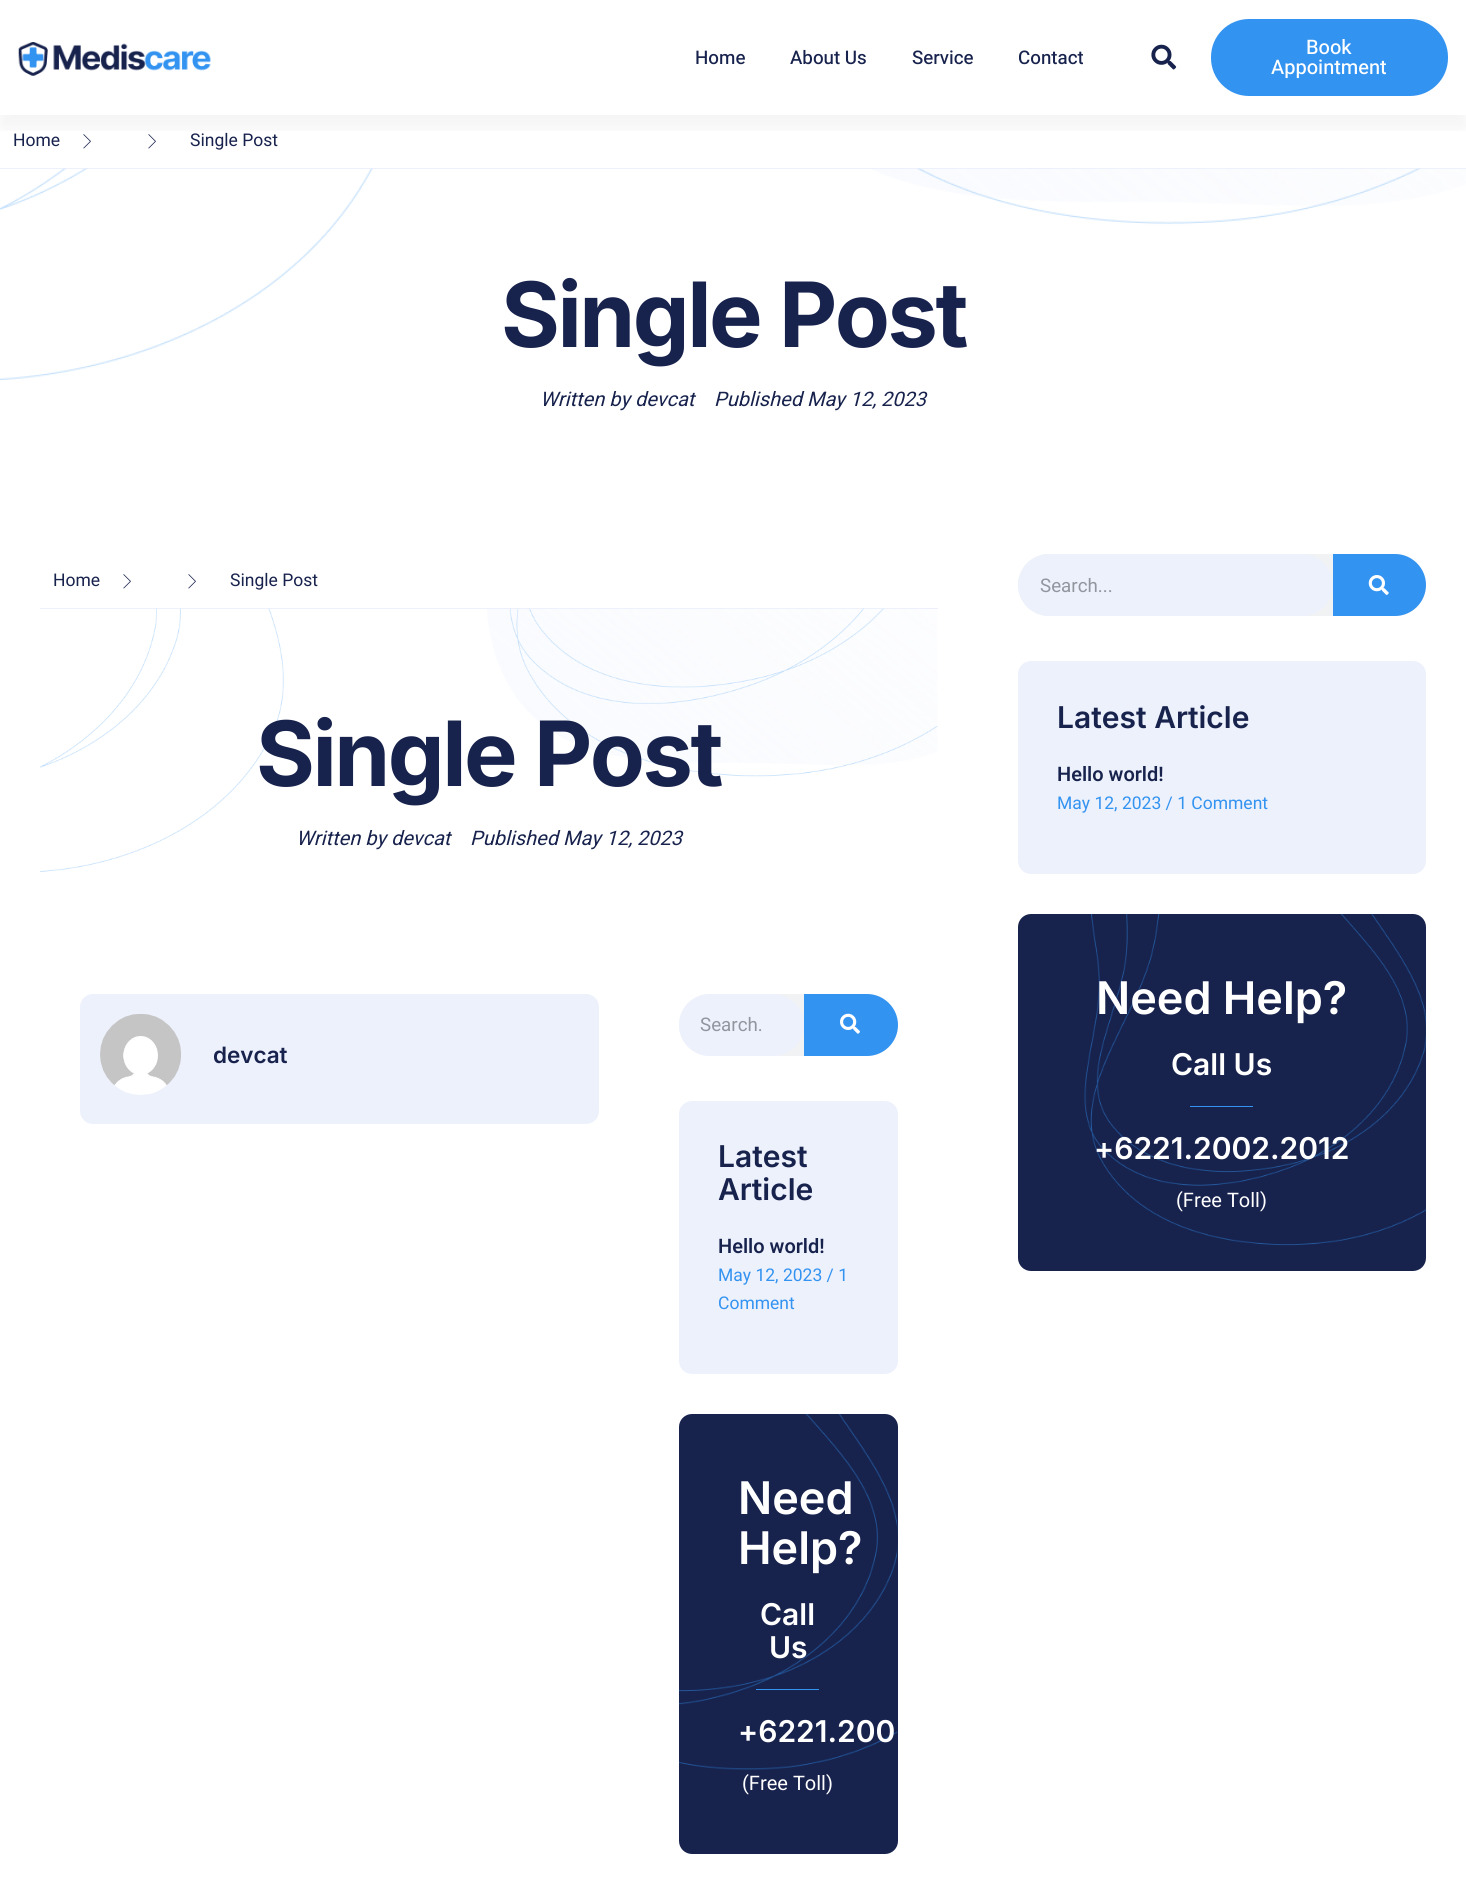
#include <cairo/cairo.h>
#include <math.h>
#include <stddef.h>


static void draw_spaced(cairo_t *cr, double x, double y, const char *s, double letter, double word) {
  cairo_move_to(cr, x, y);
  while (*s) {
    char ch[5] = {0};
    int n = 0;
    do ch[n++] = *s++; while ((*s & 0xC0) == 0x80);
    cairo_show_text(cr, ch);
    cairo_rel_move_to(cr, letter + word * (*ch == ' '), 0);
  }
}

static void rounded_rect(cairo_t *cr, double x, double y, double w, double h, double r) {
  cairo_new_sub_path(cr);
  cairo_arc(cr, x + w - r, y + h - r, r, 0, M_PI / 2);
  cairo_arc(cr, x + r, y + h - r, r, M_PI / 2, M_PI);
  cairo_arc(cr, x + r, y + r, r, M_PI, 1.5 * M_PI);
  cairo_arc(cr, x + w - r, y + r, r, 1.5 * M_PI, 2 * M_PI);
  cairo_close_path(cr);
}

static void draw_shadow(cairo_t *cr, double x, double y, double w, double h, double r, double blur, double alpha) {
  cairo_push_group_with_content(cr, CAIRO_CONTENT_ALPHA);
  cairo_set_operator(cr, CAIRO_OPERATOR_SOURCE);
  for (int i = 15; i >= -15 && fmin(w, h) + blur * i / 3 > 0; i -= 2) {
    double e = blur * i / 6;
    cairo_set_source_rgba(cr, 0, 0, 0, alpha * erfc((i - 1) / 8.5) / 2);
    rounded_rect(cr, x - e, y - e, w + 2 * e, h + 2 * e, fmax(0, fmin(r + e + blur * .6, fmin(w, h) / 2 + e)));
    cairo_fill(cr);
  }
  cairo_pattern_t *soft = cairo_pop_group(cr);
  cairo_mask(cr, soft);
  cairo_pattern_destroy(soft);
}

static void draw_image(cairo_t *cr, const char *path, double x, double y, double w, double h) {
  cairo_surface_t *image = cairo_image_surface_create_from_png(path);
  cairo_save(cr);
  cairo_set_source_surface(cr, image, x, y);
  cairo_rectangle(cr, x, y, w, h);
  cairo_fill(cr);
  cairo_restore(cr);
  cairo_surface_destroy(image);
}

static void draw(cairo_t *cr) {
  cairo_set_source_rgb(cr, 1, 1, 1);
  cairo_paint(cr);
  cairo_save(cr);
  cairo_rectangle(cr, 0, 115, 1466, 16);
  cairo_clip(cr);
  cairo_set_source_rgb(cr, 0, 0, 0);
  draw_shadow(cr, 0, 13, 1466, 115, 0, 12.5, 0.05);
  cairo_restore(cr);
  draw_image(cr, "images/1.png", 18, 42, 193, 34);
  draw_image(cr, "images/2.png", 1151, 44, 26, 26);
  cairo_set_source_rgb(cr, 51 / 255.0, 147 / 255.0, 240 / 255.0);
  rounded_rect(cr, 1211, 19, 237, 77, 38);
  cairo_fill(cr);
  cairo_set_source_rgb(cr, 237 / 255.0, 241 / 255.0, 252 / 255.0);
  cairo_rectangle(cr, 0, 168, 1466, 1);
  cairo_fill(cr);
  draw_image(cr, "images/3.png", 83, 134, 8, 15);
  draw_image(cr, "images/3.png", 148, 134, 8, 15);
  draw_image(cr, "images/4.png", 0, 168, 1466, 213);
  cairo_rectangle(cr, 40, 608, 898, 1);
  cairo_fill(cr);
  draw_image(cr, "images/5.png", 123, 574, 8, 15);
  draw_image(cr, "images/5.png", 188, 574, 8, 15);
  draw_image(cr, "images/6.png", 40, 608, 898, 264);
  rounded_rect(cr, 80, 994, 519, 130, 13);
  cairo_fill(cr);
  draw_image(cr, "images/7.png", 100, 1014, 81, 81);
  cairo_set_source_rgb(cr, 241 / 255.0, 242 / 255.0, 243 / 255.0);
  rounded_rect(cr, 679, 994, 219, 62, 31);
  cairo_fill(cr);
  cairo_set_source_rgb(cr, 237 / 255.0, 241 / 255.0, 252 / 255.0);
  rounded_rect(cr, 679.5, 994.5, 124, 61, 30.5);
  cairo_fill_preserve(cr);
  cairo_set_line_width(cr, 1);
  cairo_stroke(cr);
  cairo_set_source_rgb(cr, 51 / 255.0, 147 / 255.0, 240 / 255.0);
  cairo_new_path(cr);
  cairo_move_to(cr, 804, 994);
  cairo_line_to(cr, 867, 994);
  cairo_curve_to(cr, 884, 994, 898, 1008, 898, 1025);
  cairo_curve_to(cr, 898, 1042, 884, 1056, 867, 1056);
  cairo_line_to(cr, 804, 1056);
  cairo_close_path(cr);
  cairo_fill(cr);
  draw_image(cr, "images/8.png", 840, 1013, 20, 21);
  cairo_set_source_rgb(cr, 237 / 255.0, 241 / 255.0, 252 / 255.0);
  rounded_rect(cr, 679, 1101, 219, 273, 13);
  cairo_fill(cr);
  cairo_set_source_rgb(cr, 23 / 255.0, 34 / 255.0, 77 / 255.0);
  rounded_rect(cr, 679, 1414, 219, 440, 13);
  cairo_fill(cr);
  draw_image(cr, "images/9.png", 678, 1413, 220, 357);
  cairo_set_source_rgb(cr, 51 / 255.0, 147 / 255.0, 240 / 255.0);
  cairo_rectangle(cr, 756, 1689, 63, 1);
  cairo_fill(cr);
  cairo_set_source_rgb(cr, 241 / 255.0, 242 / 255.0, 243 / 255.0);
  rounded_rect(cr, 1018, 554, 408, 62, 31);
  cairo_fill(cr);
  cairo_set_source_rgb(cr, 237 / 255.0, 241 / 255.0, 252 / 255.0);
  rounded_rect(cr, 1018.5, 554.5, 314, 61, 30.5);
  cairo_fill_preserve(cr);
  cairo_stroke(cr);
  cairo_set_source_rgb(cr, 51 / 255.0, 147 / 255.0, 240 / 255.0);
  cairo_new_path(cr);
  cairo_move_to(cr, 1333, 554);
  cairo_line_to(cr, 1395, 554);
  cairo_curve_to(cr, 1412, 554, 1426, 568, 1426, 585);
  cairo_curve_to(cr, 1426, 602, 1412, 616, 1395, 616);
  cairo_line_to(cr, 1333, 616);
  cairo_close_path(cr);
  cairo_fill(cr);
  draw_image(cr, "images/10.png", 1368, 575, 21, 20);
  cairo_set_source_rgb(cr, 237 / 255.0, 241 / 255.0, 252 / 255.0);
  rounded_rect(cr, 1018, 661, 408, 213, 13);
  cairo_fill(cr);
  cairo_set_source_rgb(cr, 23 / 255.0, 34 / 255.0, 77 / 255.0);
  rounded_rect(cr, 1018, 914, 408, 357, 13);
  cairo_fill(cr);
  draw_image(cr, "images/11.png", 1084, 913, 343, 333);
  cairo_set_source_rgb(cr, 51 / 255.0, 147 / 255.0, 240 / 255.0);
  cairo_rectangle(cr, 1190, 1106, 63, 1);
  cairo_fill(cr);
  cairo_select_font_face(cr, "Heebo Medium", CAIRO_FONT_SLANT_NORMAL, CAIRO_FONT_WEIGHT_NORMAL);
  cairo_set_font_size(cr, 18.75);
  cairo_set_source_rgb(cr, 23 / 255.0, 34 / 255.0, 77 / 255.0);
  cairo_move_to(cr, 695, 64);
  cairo_show_text(cr, "Home");
  cairo_move_to(cr, 790, 64);
  cairo_show_text(cr, "About Us");
  cairo_move_to(cr, 912, 64);
  cairo_show_text(cr, "Service");
  cairo_move_to(cr, 1018, 64);
  cairo_show_text(cr, "Contact");
  cairo_set_font_size(cr, 20);
  cairo_set_source_rgb(cr, 1, 1, 1);
  cairo_move_to(cr, 1306, 54);
  cairo_show_text(cr, "Book");
  cairo_move_to(cr, 1271, 74);
  cairo_show_text(cr, "Appointment");
  cairo_select_font_face(cr, "Heebo", CAIRO_FONT_SLANT_NORMAL, CAIRO_FONT_WEIGHT_NORMAL);
  cairo_set_font_size(cr, 17.5);
  cairo_set_source_rgb(cr, 23 / 255.0, 34 / 255.0, 77 / 255.0);
  cairo_move_to(cr, 13, 146);
  cairo_show_text(cr, "Home");
  cairo_move_to(cr, 190, 146);
  cairo_show_text(cr, "Single Post");
  cairo_select_font_face(cr, "Inter", CAIRO_FONT_SLANT_NORMAL, CAIRO_FONT_WEIGHT_BOLD);
  cairo_set_font_size(cr, 90);
  draw_spaced(cr, 501, 347, "Single Post", -2.5, 0);
  cairo_select_font_face(cr, "Heebo", CAIRO_FONT_SLANT_ITALIC, CAIRO_FONT_WEIGHT_NORMAL);
  cairo_set_font_size(cr, 20);
  cairo_move_to(cr, 540, 406);
  cairo_show_text(cr, "Written by devcat");
  cairo_move_to(cr, 714, 406);
  cairo_show_text(cr, "Published May 12, 2023");
  cairo_select_font_face(cr, "Heebo", CAIRO_FONT_SLANT_NORMAL, CAIRO_FONT_WEIGHT_NORMAL);
  cairo_set_font_size(cr, 17.5);
  cairo_move_to(cr, 53, 586);
  cairo_show_text(cr, "Home");
  cairo_move_to(cr, 230, 586);
  cairo_show_text(cr, "Single Post");
  cairo_select_font_face(cr, "Inter", CAIRO_FONT_SLANT_NORMAL, CAIRO_FONT_WEIGHT_BOLD);
  cairo_set_font_size(cr, 90);
  draw_spaced(cr, 256, 786, "Single Post", -2.5, 0);
  cairo_select_font_face(cr, "Heebo", CAIRO_FONT_SLANT_ITALIC, CAIRO_FONT_WEIGHT_NORMAL);
  cairo_set_font_size(cr, 20);
  cairo_move_to(cr, 296, 845);
  cairo_show_text(cr, "Written by devcat");
  cairo_move_to(cr, 470, 845);
  cairo_show_text(cr, "Published May 12, 2023");
  cairo_select_font_face(cr, "Inter SemiBold", CAIRO_FONT_SLANT_NORMAL, CAIRO_FONT_WEIGHT_NORMAL);
  cairo_set_font_size(cr, 22.5);
  cairo_move_to(cr, 213, 1063);
  cairo_show_text(cr, "devcat");
  cairo_select_font_face(cr, "Heebo", CAIRO_FONT_SLANT_NORMAL, CAIRO_FONT_WEIGHT_NORMAL);
  cairo_set_font_size(cr, 18.75);
  cairo_set_source_rgb(cr, 145 / 255.0, 150 / 255.0, 158 / 255.0);
  cairo_move_to(cr, 700, 1031);
  cairo_show_text(cr, "Search.");
  cairo_select_font_face(cr, "Inter SemiBold", CAIRO_FONT_SLANT_NORMAL, CAIRO_FONT_WEIGHT_NORMAL);
  cairo_set_font_size(cr, 30);
  cairo_set_source_rgb(cr, 23 / 255.0, 34 / 255.0, 77 / 255.0);
  cairo_move_to(cr, 718, 1167);
  cairo_show_text(cr, "Latest");
  cairo_move_to(cr, 718, 1200);
  cairo_show_text(cr, "Article");
  cairo_select_font_face(cr, "Heebo SemiBold", CAIRO_FONT_SLANT_NORMAL, CAIRO_FONT_WEIGHT_NORMAL);
  cairo_set_font_size(cr, 20);
  cairo_move_to(cr, 718, 1253);
  cairo_show_text(cr, "Hello world!");
  cairo_select_font_face(cr, "Heebo", CAIRO_FONT_SLANT_NORMAL, CAIRO_FONT_WEIGHT_NORMAL);
  cairo_set_font_size(cr, 17.5);
  cairo_set_source_rgb(cr, 51 / 255.0, 147 / 255.0, 240 / 255.0);
  cairo_move_to(cr, 718, 1281);
  cairo_show_text(cr, "May 12, 2023 / 1");
  cairo_move_to(cr, 718, 1309);
  cairo_show_text(cr, "Comment");
  cairo_select_font_face(cr, "Inter SemiBold", CAIRO_FONT_SLANT_NORMAL, CAIRO_FONT_WEIGHT_NORMAL);
  cairo_set_font_size(cr, 45);
  cairo_set_source_rgb(cr, 1, 1, 1);
  cairo_move_to(cr, 738, 1514);
  cairo_show_text(cr, "Need");
  cairo_move_to(cr, 738, 1564);
  cairo_show_text(cr, "Help?");
  cairo_set_font_size(cr, 30);
  cairo_move_to(cr, 760, 1625);
  cairo_show_text(cr, "Call");
  cairo_move_to(cr, 769, 1658);
  cairo_show_text(cr, "Us");
  cairo_move_to(cr, 738, 1742);
  cairo_show_text(cr, "+6221.200");
  cairo_select_font_face(cr, "Heebo", CAIRO_FONT_SLANT_NORMAL, CAIRO_FONT_WEIGHT_NORMAL);
  cairo_set_font_size(cr, 20);
  cairo_move_to(cr, 742, 1790);
  cairo_show_text(cr, "(Free Toll)");
  cairo_set_font_size(cr, 18.75);
  cairo_set_source_rgb(cr, 145 / 255.0, 150 / 255.0, 158 / 255.0);
  cairo_move_to(cr, 1040, 592);
  cairo_show_text(cr, "Search...");
  cairo_select_font_face(cr, "Inter SemiBold", CAIRO_FONT_SLANT_NORMAL, CAIRO_FONT_WEIGHT_NORMAL);
  cairo_set_font_size(cr, 30);
  cairo_set_source_rgb(cr, 23 / 255.0, 34 / 255.0, 77 / 255.0);
  cairo_move_to(cr, 1057, 728);
  cairo_show_text(cr, "Latest Article");
  cairo_select_font_face(cr, "Heebo SemiBold", CAIRO_FONT_SLANT_NORMAL, CAIRO_FONT_WEIGHT_NORMAL);
  cairo_set_font_size(cr, 20);
  cairo_move_to(cr, 1057, 781);
  cairo_show_text(cr, "Hello world!");
  cairo_select_font_face(cr, "Heebo", CAIRO_FONT_SLANT_NORMAL, CAIRO_FONT_WEIGHT_NORMAL);
  cairo_set_font_size(cr, 17.5);
  cairo_set_source_rgb(cr, 51 / 255.0, 147 / 255.0, 240 / 255.0);
  cairo_move_to(cr, 1057, 809);
  cairo_show_text(cr, "May 12, 2023 / 1 Comment");
  cairo_select_font_face(cr, "Inter SemiBold", CAIRO_FONT_SLANT_NORMAL, CAIRO_FONT_WEIGHT_NORMAL);
  cairo_set_font_size(cr, 45);
  cairo_set_source_rgb(cr, 1, 1, 1);
  cairo_move_to(cr, 1096, 1014);
  cairo_show_text(cr, "Need Help?");
  cairo_set_font_size(cr, 30);
  cairo_move_to(cr, 1171, 1075);
  cairo_show_text(cr, "Call Us");
  cairo_move_to(cr, 1094, 1159);
  cairo_show_text(cr, "+6221.2002.2012");
  cairo_select_font_face(cr, "Heebo", CAIRO_FONT_SLANT_NORMAL, CAIRO_FONT_WEIGHT_NORMAL);
  cairo_set_font_size(cr, 20);
  cairo_move_to(cr, 1176, 1207);
  cairo_show_text(cr, "(Free Toll)");
}

int main(void) {
  cairo_surface_t *surface = cairo_image_surface_create(CAIRO_FORMAT_RGB24, 1466, 1887);
  cairo_t *cr = cairo_create(surface);
  cairo_font_options_t *options = cairo_font_options_create();
  cairo_font_options_set_hint_metrics(options, CAIRO_HINT_METRICS_OFF);
  cairo_font_options_set_hint_style(options, CAIRO_HINT_STYLE_NONE);
  cairo_set_font_options(cr, options);
  cairo_set_miter_limit(cr, 4);
  draw(cr);
  cairo_surface_write_to_png(surface, "out.png");
  cairo_font_options_destroy(options);
  cairo_destroy(cr);
  cairo_surface_destroy(surface);
  return 0;
}
